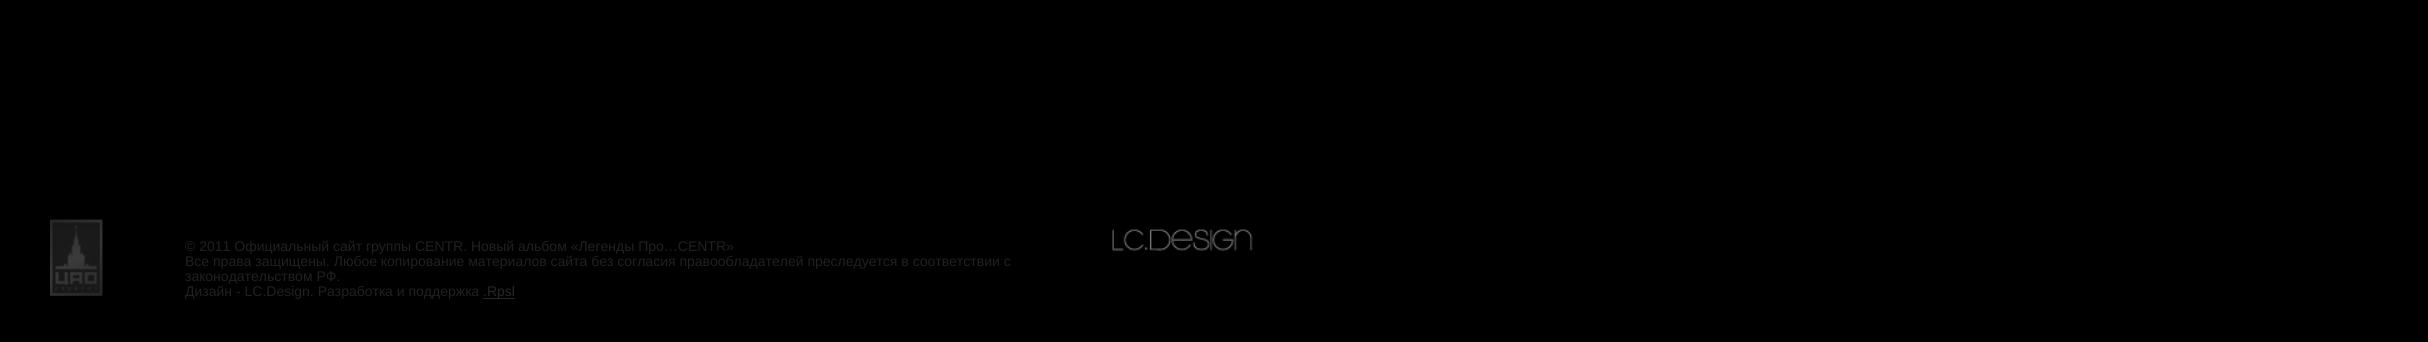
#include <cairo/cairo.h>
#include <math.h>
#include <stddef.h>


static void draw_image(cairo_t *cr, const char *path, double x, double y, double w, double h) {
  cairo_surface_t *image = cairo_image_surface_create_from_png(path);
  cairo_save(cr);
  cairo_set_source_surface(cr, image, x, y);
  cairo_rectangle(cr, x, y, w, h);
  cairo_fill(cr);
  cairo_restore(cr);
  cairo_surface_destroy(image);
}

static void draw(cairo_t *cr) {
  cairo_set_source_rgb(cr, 0, 0, 0);
  cairo_paint(cr);
  draw_image(cr, "images/1.png", 50, 219, 53, 77);
  cairo_set_source_rgb(cr, 38 / 255.0, 38 / 255.0, 38 / 255.0);
  cairo_rectangle(cr, 483, 298, 32, 1);
  cairo_fill(cr);
  draw_image(cr, "images/2.png", 1112, 229, 141, 22);
  cairo_select_font_face(cr, "Liberation Sans", CAIRO_FONT_SLANT_NORMAL, CAIRO_FONT_WEIGHT_NORMAL);
  cairo_set_font_size(cr, 14);
  cairo_set_source_rgb(cr, 32 / 255.0, 32 / 255.0, 32 / 255.0);
  cairo_move_to(cr, 185, 251);
  cairo_show_text(cr, "© 2011 Официальный сайт группы CENTR. Новый альбом «Легенды Про…CENTR»");
  cairo_move_to(cr, 185, 266);
  cairo_show_text(cr, "Все права защищены. Любое копирование материалов сайта без согласия правообладателей преследуется в соответствии с");
  cairo_move_to(cr, 185, 281);
  cairo_show_text(cr, "законодательством РФ.");
  cairo_move_to(cr, 185, 296);
  cairo_show_text(cr, "Дизайн - LC.Design. Разработка и поддержка");
  cairo_set_source_rgb(cr, 38 / 255.0, 38 / 255.0, 38 / 255.0);
  cairo_move_to(cr, 483, 296);
  cairo_show_text(cr, ".Rpsl");
}

int main(void) {
  cairo_surface_t *surface = cairo_image_surface_create(CAIRO_FORMAT_RGB24, 2428, 342);
  cairo_t *cr = cairo_create(surface);
  cairo_font_options_t *options = cairo_font_options_create();
  cairo_font_options_set_hint_metrics(options, CAIRO_HINT_METRICS_OFF);
  cairo_font_options_set_hint_style(options, CAIRO_HINT_STYLE_NONE);
  cairo_set_font_options(cr, options);
  cairo_set_miter_limit(cr, 4);
  draw(cr);
  cairo_surface_write_to_png(surface, "out.png");
  cairo_font_options_destroy(options);
  cairo_destroy(cr);
  cairo_surface_destroy(surface);
  return 0;
}
